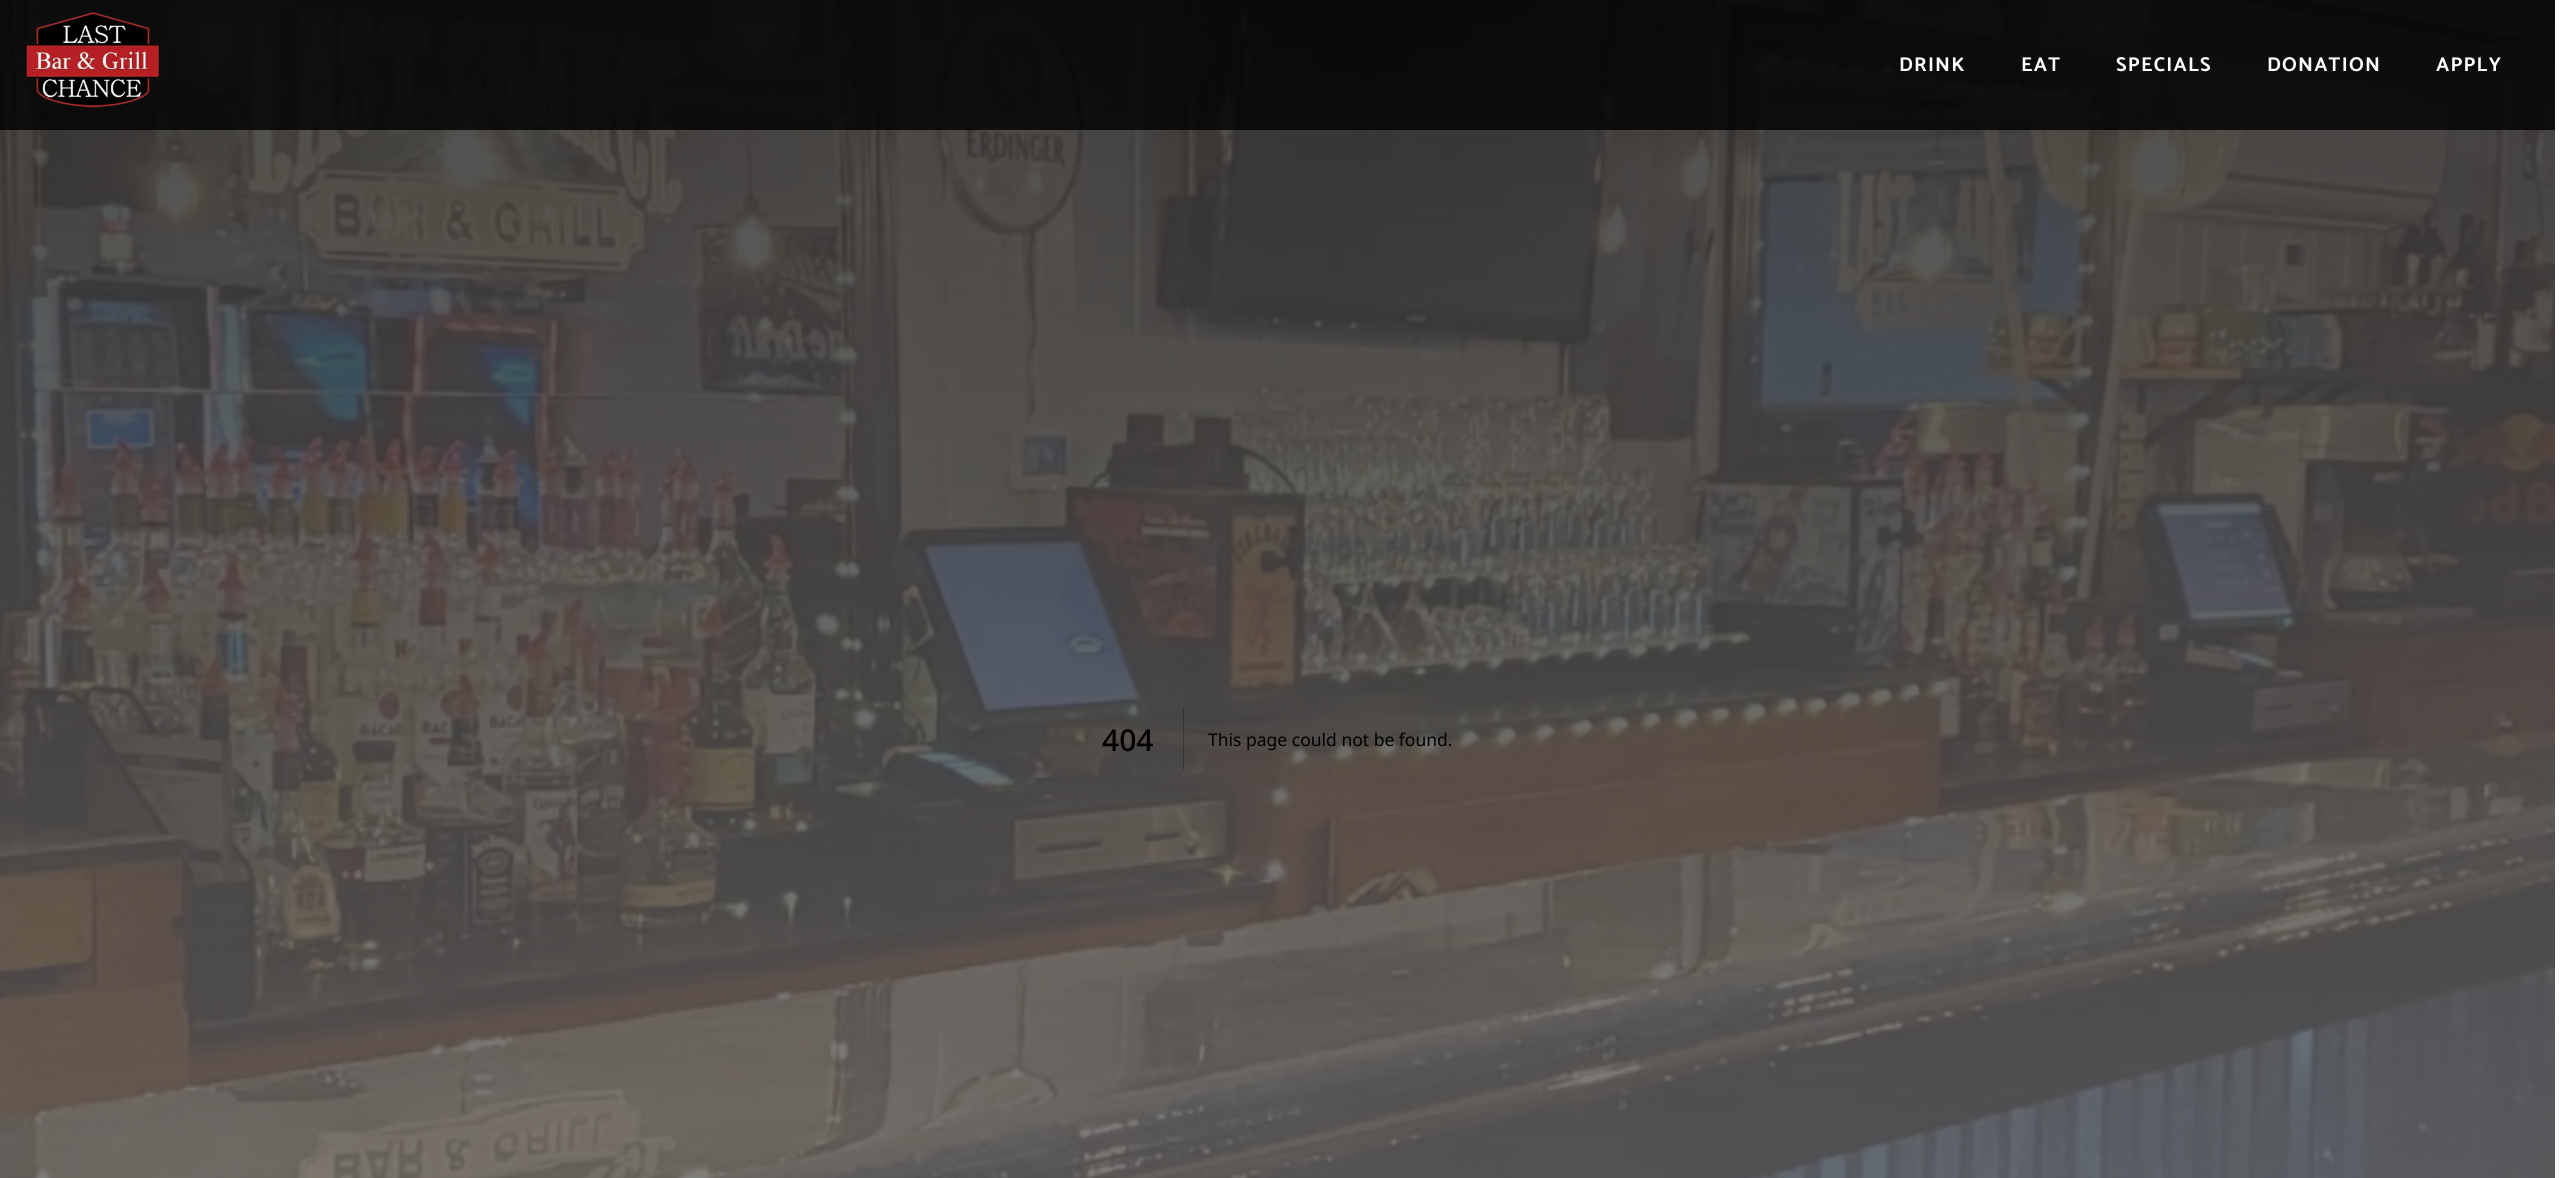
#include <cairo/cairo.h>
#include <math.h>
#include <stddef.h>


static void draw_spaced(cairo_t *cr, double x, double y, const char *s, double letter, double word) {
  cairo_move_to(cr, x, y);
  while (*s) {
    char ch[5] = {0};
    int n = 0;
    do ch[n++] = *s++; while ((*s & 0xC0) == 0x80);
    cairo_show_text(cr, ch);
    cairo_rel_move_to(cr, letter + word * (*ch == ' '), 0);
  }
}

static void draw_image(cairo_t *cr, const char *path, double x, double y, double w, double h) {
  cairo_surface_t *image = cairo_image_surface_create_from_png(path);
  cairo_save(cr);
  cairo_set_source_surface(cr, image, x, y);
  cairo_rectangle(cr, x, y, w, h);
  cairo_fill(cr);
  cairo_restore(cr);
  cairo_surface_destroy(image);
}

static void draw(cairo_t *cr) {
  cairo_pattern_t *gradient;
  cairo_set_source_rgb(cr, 1, 1, 1);
  cairo_paint(cr);
  draw_image(cr, "images/1.png", 0, 0, 2555, 1178);
  gradient = cairo_pattern_create_linear(1277, 0, 1278, 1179);
  cairo_pattern_add_color_stop_rgba(gradient, 0, 0, 0, 0, 0.7);
  cairo_pattern_add_color_stop_rgba(gradient, 1, 0, 0, 0, 0.5);
  cairo_set_source(cr, gradient);
  cairo_pattern_destroy(gradient);
  cairo_rectangle(cr, 0, 0, 2555, 1178);
  cairo_fill(cr);
  cairo_set_source_rgba(cr, 0, 0, 0, 0.8);
  cairo_rectangle(cr, 0, 0, 2555, 130);
  cairo_fill(cr);
  draw_image(cr, "images/2.png", 25, 12, 136, 96);
  cairo_set_source_rgba(cr, 0, 0, 0, 0.3);
  cairo_rectangle(cr, 1183, 709, 1, 61);
  cairo_fill(cr);
  cairo_select_font_face(cr, "Catamaran", CAIRO_FONT_SLANT_NORMAL, CAIRO_FONT_WEIGHT_BOLD);
  cairo_set_font_size(cr, 20);
  cairo_set_source_rgb(cr, 1, 1, 1);
  draw_spaced(cr, 1899, 71, "DRINK", 1.25, 0);
  draw_spaced(cr, 2021, 71, "EAT", 1.25, 0);
  draw_spaced(cr, 2116, 71, "SPECIALS", 1.25, 0);
  draw_spaced(cr, 2267, 71, "DONATION", 1.25, 0);
  draw_spaced(cr, 2436, 71, "APPLY", 1.25, 0);
  cairo_select_font_face(cr, "Noto Sans Medium", CAIRO_FONT_SLANT_NORMAL, CAIRO_FONT_WEIGHT_NORMAL);
  cairo_set_font_size(cr, 30);
  cairo_set_source_rgb(cr, 0, 0, 0);
  cairo_move_to(cr, 1102, 751);
  cairo_show_text(cr, "404");
  cairo_select_font_face(cr, "Noto Sans", CAIRO_FONT_SLANT_NORMAL, CAIRO_FONT_WEIGHT_NORMAL);
  cairo_set_font_size(cr, 17.5);
  cairo_move_to(cr, 1208, 746);
  cairo_show_text(cr, "This page could not be found.");
}

int main(void) {
  cairo_surface_t *surface = cairo_image_surface_create(CAIRO_FORMAT_RGB24, 2573, 1178);
  cairo_t *cr = cairo_create(surface);
  cairo_font_options_t *options = cairo_font_options_create();
  cairo_font_options_set_hint_metrics(options, CAIRO_HINT_METRICS_OFF);
  cairo_font_options_set_hint_style(options, CAIRO_HINT_STYLE_NONE);
  cairo_set_font_options(cr, options);
  cairo_set_miter_limit(cr, 4);
  draw(cr);
  cairo_surface_write_to_png(surface, "out.png");
  cairo_font_options_destroy(options);
  cairo_destroy(cr);
  cairo_surface_destroy(surface);
  return 0;
}
